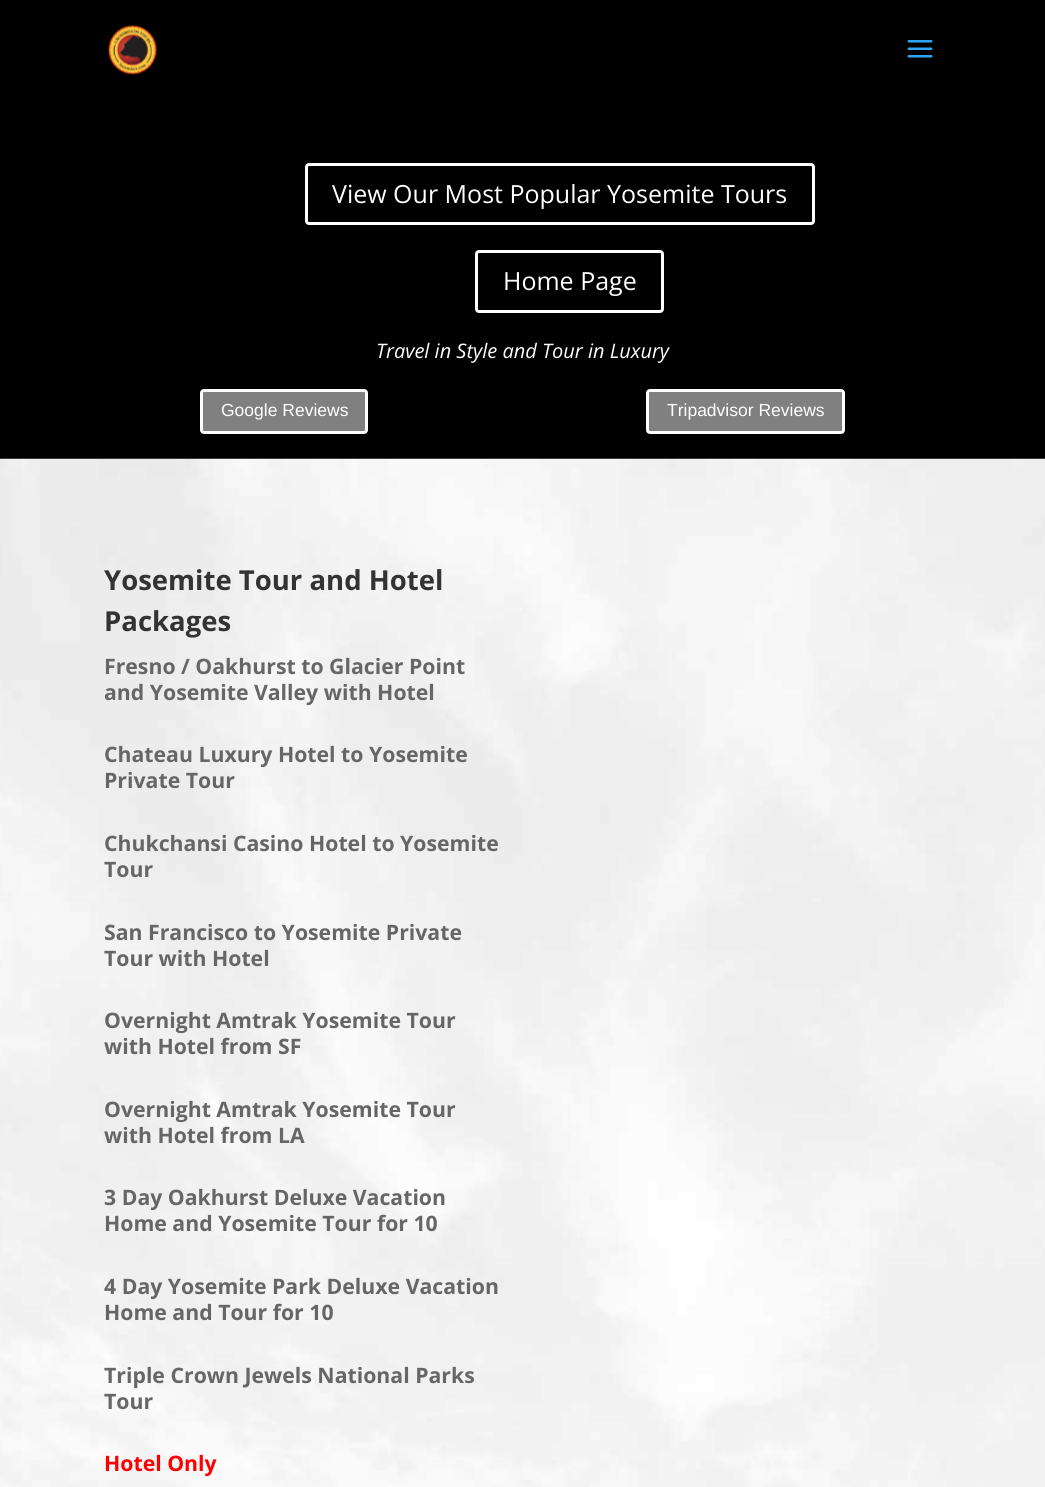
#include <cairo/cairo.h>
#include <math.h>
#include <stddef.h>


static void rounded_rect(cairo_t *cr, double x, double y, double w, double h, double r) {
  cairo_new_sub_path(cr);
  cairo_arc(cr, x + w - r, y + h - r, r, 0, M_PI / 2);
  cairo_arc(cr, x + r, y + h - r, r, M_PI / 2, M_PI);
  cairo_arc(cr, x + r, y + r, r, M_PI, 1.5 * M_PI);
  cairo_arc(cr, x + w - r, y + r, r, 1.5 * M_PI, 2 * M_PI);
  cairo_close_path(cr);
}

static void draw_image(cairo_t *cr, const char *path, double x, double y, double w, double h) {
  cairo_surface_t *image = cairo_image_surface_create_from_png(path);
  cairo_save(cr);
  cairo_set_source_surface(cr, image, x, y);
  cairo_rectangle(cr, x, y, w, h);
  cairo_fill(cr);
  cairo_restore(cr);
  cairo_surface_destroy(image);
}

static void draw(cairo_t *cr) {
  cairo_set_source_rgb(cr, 0, 0, 0);
  cairo_paint(cr);
  draw_image(cr, "images/1.png", 108, 25, 49, 50);
  draw_image(cr, "images/2.png", 907, 40, 26, 18);
  rounded_rect(cr, 306.5, 164.5, 507, 59, 2.5);
  cairo_set_source_rgb(cr, 1, 1, 1);
  cairo_set_line_width(cr, 3);
  cairo_stroke(cr);
  rounded_rect(cr, 476.5, 251.5, 186, 60, 2.5);
  cairo_stroke(cr);
  cairo_set_source_rgb(cr, 128 / 255.0, 128 / 255.0, 128 / 255.0);
  rounded_rect(cr, 201.5, 390.5, 165, 42, 2.5);
  cairo_fill_preserve(cr);
  cairo_set_source_rgb(cr, 1, 1, 1);
  cairo_stroke(cr);
  cairo_set_source_rgb(cr, 128 / 255.0, 128 / 255.0, 128 / 255.0);
  rounded_rect(cr, 647.5, 390.5, 196, 42, 2.5);
  cairo_fill_preserve(cr);
  cairo_set_source_rgb(cr, 1, 1, 1);
  cairo_stroke(cr);
  draw_image(cr, "images/3.png", 0, 458, 1045, 1029);
  cairo_select_font_face(cr, "Open Sans", CAIRO_FONT_SLANT_NORMAL, CAIRO_FONT_WEIGHT_NORMAL);
  cairo_set_font_size(cr, 25);
  cairo_move_to(cr, 332, 203);
  cairo_show_text(cr, "View Our Most Popular Yosemite Tours");
  cairo_move_to(cr, 503, 290);
  cairo_show_text(cr, "Home Page");
  cairo_select_font_face(cr, "Open Sans", CAIRO_FONT_SLANT_ITALIC, CAIRO_FONT_WEIGHT_NORMAL);
  cairo_set_font_size(cr, 20);
  cairo_move_to(cr, 376, 358);
  cairo_show_text(cr, "Travel in Style and Tour in Luxury");
  cairo_select_font_face(cr, "Liberation Sans", CAIRO_FONT_SLANT_NORMAL, CAIRO_FONT_WEIGHT_NORMAL);
  cairo_set_font_size(cr, 17.5);
  cairo_move_to(cr, 221, 416);
  cairo_show_text(cr, "Google Reviews");
  cairo_move_to(cr, 667, 416);
  cairo_show_text(cr, "Tripadvisor Reviews");
  cairo_select_font_face(cr, "Open Sans", CAIRO_FONT_SLANT_NORMAL, CAIRO_FONT_WEIGHT_BOLD);
  cairo_set_font_size(cr, 27.5);
  cairo_set_source_rgb(cr, 51 / 255.0, 51 / 255.0, 51 / 255.0);
  cairo_move_to(cr, 104, 590);
  cairo_show_text(cr, "Yosemite Tour and Hotel");
  cairo_move_to(cr, 104, 631);
  cairo_show_text(cr, "Packages");
  cairo_set_font_size(cr, 21.25);
  cairo_set_source_rgb(cr, 102 / 255.0, 102 / 255.0, 102 / 255.0);
  cairo_move_to(cr, 104, 674);
  cairo_show_text(cr, "Fresno / Oakhurst to Glacier Point");
  cairo_move_to(cr, 104, 700);
  cairo_show_text(cr, "and Yosemite Valley with Hotel");
  cairo_move_to(cr, 104, 762);
  cairo_show_text(cr, "Chateau Luxury Hotel to Yosemite");
  cairo_move_to(cr, 104, 788);
  cairo_show_text(cr, "Private Tour");
  cairo_move_to(cr, 104, 851);
  cairo_show_text(cr, "Chukchansi Casino Hotel to Yosemite");
  cairo_move_to(cr, 104, 877);
  cairo_show_text(cr, "Tour");
  cairo_move_to(cr, 104, 940);
  cairo_show_text(cr, "San Francisco to Yosemite Private");
  cairo_move_to(cr, 104, 966);
  cairo_show_text(cr, "Tour with Hotel");
  cairo_move_to(cr, 104, 1028);
  cairo_show_text(cr, "Overnight Amtrak Yosemite Tour");
  cairo_move_to(cr, 104, 1054);
  cairo_show_text(cr, "with Hotel from SF");
  cairo_move_to(cr, 104, 1117);
  cairo_show_text(cr, "Overnight Amtrak Yosemite Tour");
  cairo_move_to(cr, 104, 1143);
  cairo_show_text(cr, "with Hotel from LA");
  cairo_move_to(cr, 104, 1205);
  cairo_show_text(cr, "3 Day Oakhurst Deluxe Vacation");
  cairo_move_to(cr, 104, 1231);
  cairo_show_text(cr, "Home and Yosemite Tour for 10");
  cairo_move_to(cr, 104, 1294);
  cairo_show_text(cr, "4 Day Yosemite Park Deluxe Vacation");
  cairo_move_to(cr, 104, 1320);
  cairo_show_text(cr, "Home and Tour for 10");
  cairo_move_to(cr, 104, 1383);
  cairo_show_text(cr, "Triple Crown Jewels National Parks");
  cairo_move_to(cr, 104, 1409);
  cairo_show_text(cr, "Tour");
  cairo_set_source_rgb(cr, 1, 0, 0);
  cairo_move_to(cr, 104, 1471);
  cairo_show_text(cr, "Hotel Only");
}

int main(void) {
  cairo_surface_t *surface = cairo_image_surface_create(CAIRO_FORMAT_RGB24, 1045, 1487);
  cairo_t *cr = cairo_create(surface);
  cairo_font_options_t *options = cairo_font_options_create();
  cairo_font_options_set_hint_metrics(options, CAIRO_HINT_METRICS_OFF);
  cairo_font_options_set_hint_style(options, CAIRO_HINT_STYLE_NONE);
  cairo_set_font_options(cr, options);
  cairo_set_miter_limit(cr, 4);
  draw(cr);
  cairo_surface_write_to_png(surface, "out.png");
  cairo_font_options_destroy(options);
  cairo_destroy(cr);
  cairo_surface_destroy(surface);
  return 0;
}
